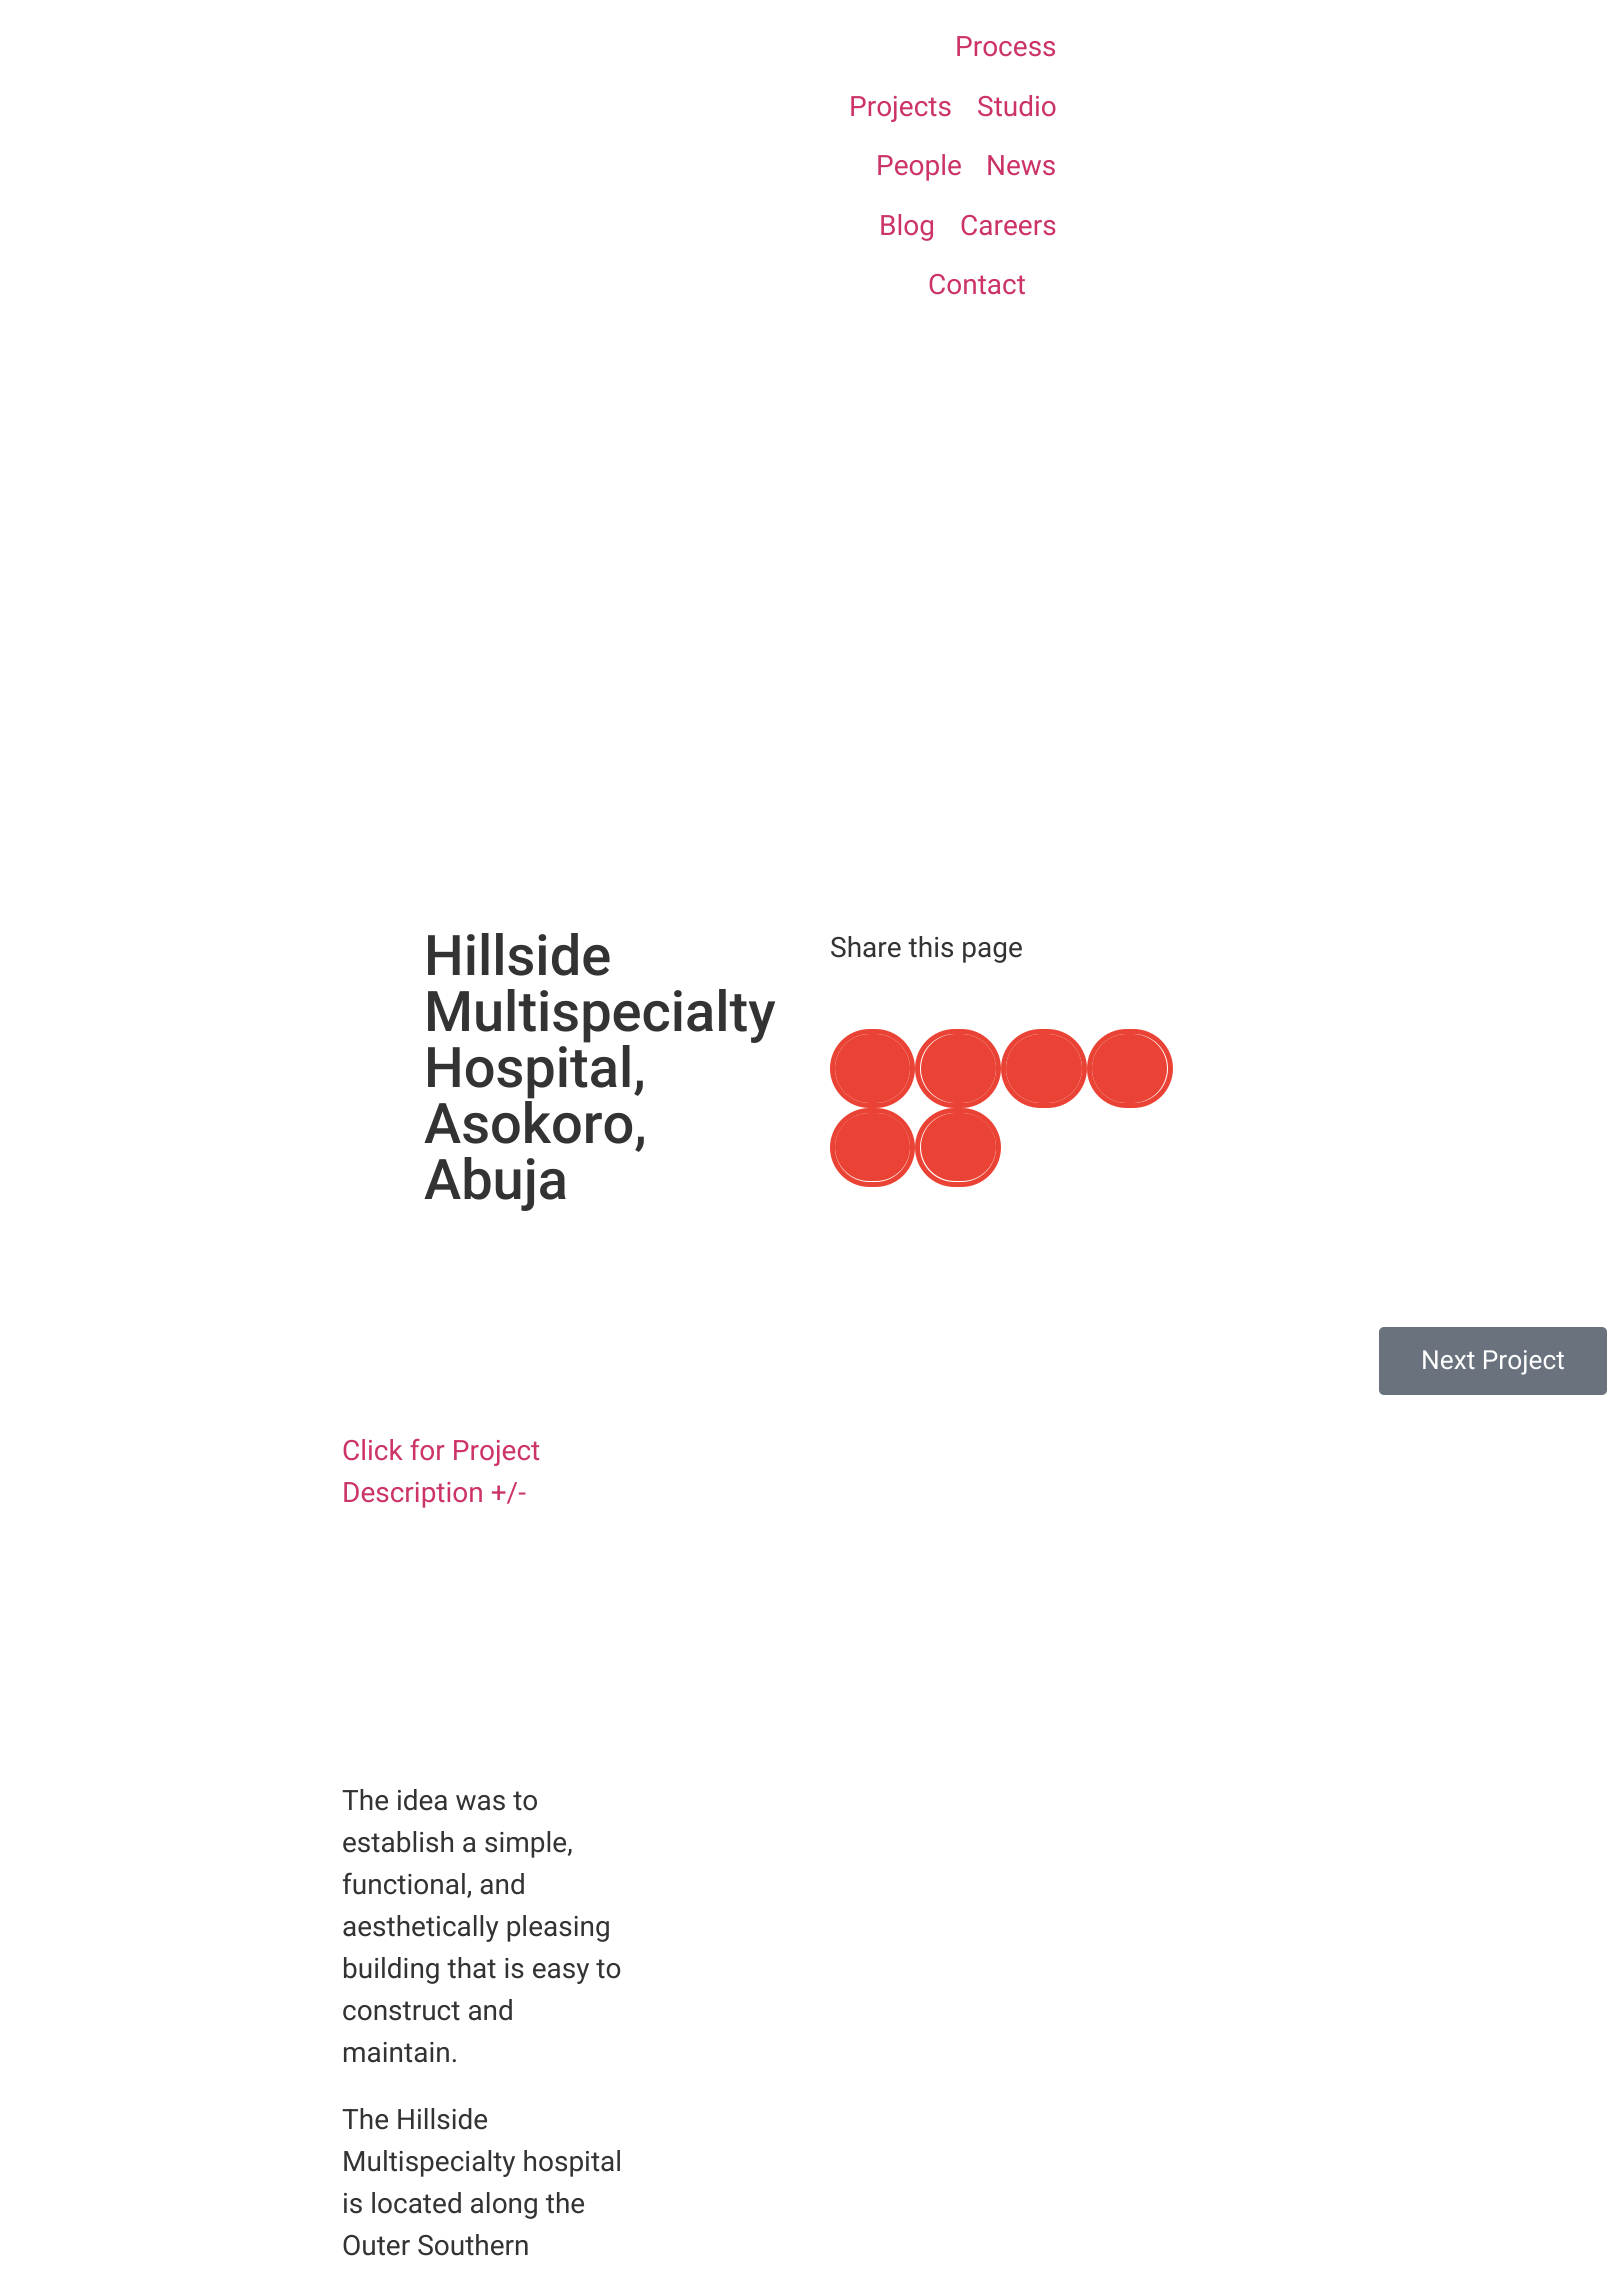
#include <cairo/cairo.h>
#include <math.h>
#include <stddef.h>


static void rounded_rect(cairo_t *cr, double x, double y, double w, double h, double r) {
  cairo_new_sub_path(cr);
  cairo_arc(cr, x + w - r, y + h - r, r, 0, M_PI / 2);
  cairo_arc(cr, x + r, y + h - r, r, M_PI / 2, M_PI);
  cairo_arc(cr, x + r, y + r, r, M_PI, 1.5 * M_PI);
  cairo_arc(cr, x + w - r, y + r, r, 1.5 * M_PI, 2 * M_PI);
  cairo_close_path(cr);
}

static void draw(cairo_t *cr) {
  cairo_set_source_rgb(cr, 1, 1, 1);
  cairo_paint(cr);
  rounded_rect(cr, 832.5, 1031.5, 80, 74, 37);
  cairo_set_source_rgb(cr, 234 / 255.0, 67 / 255.0, 53 / 255.0);
  cairo_set_line_width(cr, 5);
  cairo_stroke(cr);
  rounded_rect(cr, 835, 1034, 75, 69, 34.5);
  cairo_fill(cr);
  rounded_rect(cr, 917.5, 1031.5, 81, 74, 37);
  cairo_stroke(cr);
  rounded_rect(cr, 921, 1034, 75, 69, 34.5);
  cairo_fill(cr);
  rounded_rect(cr, 1003.5, 1031.5, 81, 74, 37);
  cairo_stroke(cr);
  rounded_rect(cr, 1006, 1034, 76, 69, 34.5);
  cairo_fill(cr);
  rounded_rect(cr, 1089.5, 1031.5, 81, 74, 37);
  cairo_stroke(cr);
  rounded_rect(cr, 1092, 1034, 75, 69, 34.5);
  cairo_fill(cr);
  rounded_rect(cr, 832.5, 1110.5, 80, 74, 37);
  cairo_stroke(cr);
  rounded_rect(cr, 835, 1113, 75, 68, 34);
  cairo_fill(cr);
  rounded_rect(cr, 917.5, 1110.5, 81, 74, 37);
  cairo_stroke(cr);
  rounded_rect(cr, 921, 1113, 75, 68, 34);
  cairo_fill(cr);
  cairo_set_source_rgb(cr, 105 / 255.0, 114 / 255.0, 125 / 255.0);
  rounded_rect(cr, 1379, 1327, 228, 68, 5);
  cairo_fill(cr);
  cairo_select_font_face(cr, "Roboto", CAIRO_FONT_SLANT_NORMAL, CAIRO_FONT_WEIGHT_NORMAL);
  cairo_set_font_size(cr, 28);
  cairo_set_source_rgb(cr, 204 / 255.0, 51 / 255.0, 102 / 255.0);
  cairo_move_to(cr, 955, 56);
  cairo_show_text(cr, "Process");
  cairo_move_to(cr, 849, 116);
  cairo_show_text(cr, "Projects");
  cairo_move_to(cr, 977, 116);
  cairo_show_text(cr, "Studio");
  cairo_move_to(cr, 876, 175);
  cairo_show_text(cr, "People");
  cairo_move_to(cr, 986, 175);
  cairo_show_text(cr, "News");
  cairo_move_to(cr, 879, 235);
  cairo_show_text(cr, "Blog");
  cairo_move_to(cr, 960, 235);
  cairo_show_text(cr, "Careers");
  cairo_move_to(cr, 928, 294);
  cairo_show_text(cr, "Contact");
  cairo_select_font_face(cr, "Roboto Medium", CAIRO_FONT_SLANT_NORMAL, CAIRO_FONT_WEIGHT_NORMAL);
  cairo_set_font_size(cr, 56);
  cairo_set_source_rgb(cr, 51 / 255.0, 51 / 255.0, 51 / 255.0);
  cairo_move_to(cr, 424, 975);
  cairo_show_text(cr, "Hillside");
  cairo_move_to(cr, 424, 1031);
  cairo_show_text(cr, "Multispecialty");
  cairo_move_to(cr, 424, 1087);
  cairo_show_text(cr, "Hospital,");
  cairo_move_to(cr, 424, 1143);
  cairo_show_text(cr, "Asokoro,");
  cairo_move_to(cr, 424, 1199);
  cairo_show_text(cr, "Abuja");
  cairo_select_font_face(cr, "Roboto", CAIRO_FONT_SLANT_NORMAL, CAIRO_FONT_WEIGHT_NORMAL);
  cairo_set_font_size(cr, 28);
  cairo_move_to(cr, 830, 957);
  cairo_show_text(cr, "Share this page");
  cairo_set_font_size(cr, 26.25);
  cairo_set_source_rgb(cr, 1, 1, 1);
  cairo_move_to(cr, 1421, 1369);
  cairo_show_text(cr, "Next Project");
  cairo_set_font_size(cr, 28);
  cairo_set_source_rgb(cr, 204 / 255.0, 51 / 255.0, 102 / 255.0);
  cairo_move_to(cr, 342, 1460);
  cairo_show_text(cr, "Click for Project");
  cairo_move_to(cr, 342, 1502);
  cairo_show_text(cr, "Description +/-");
  cairo_set_source_rgb(cr, 51 / 255.0, 51 / 255.0, 51 / 255.0);
  cairo_move_to(cr, 342, 1810);
  cairo_show_text(cr, "The idea was to");
  cairo_move_to(cr, 342, 1852);
  cairo_show_text(cr, "establish a simple,");
  cairo_move_to(cr, 342, 1894);
  cairo_show_text(cr, "functional, and");
  cairo_move_to(cr, 342, 1936);
  cairo_show_text(cr, "aesthetically pleasing");
  cairo_move_to(cr, 342, 1978);
  cairo_show_text(cr, "building that is easy to");
  cairo_move_to(cr, 342, 2020);
  cairo_show_text(cr, "construct and");
  cairo_move_to(cr, 342, 2062);
  cairo_show_text(cr, "maintain.");
  cairo_move_to(cr, 342, 2129);
  cairo_show_text(cr, "The Hillside");
  cairo_move_to(cr, 342, 2171);
  cairo_show_text(cr, "Multispecialty hospital");
  cairo_move_to(cr, 342, 2213);
  cairo_show_text(cr, "is located along the");
  cairo_move_to(cr, 342, 2255);
  cairo_show_text(cr, "Outer Southern");
}

int main(void) {
  cairo_surface_t *surface = cairo_image_surface_create(CAIRO_FORMAT_RGB24, 1624, 2278);
  cairo_t *cr = cairo_create(surface);
  cairo_font_options_t *options = cairo_font_options_create();
  cairo_font_options_set_hint_metrics(options, CAIRO_HINT_METRICS_OFF);
  cairo_font_options_set_hint_style(options, CAIRO_HINT_STYLE_NONE);
  cairo_set_font_options(cr, options);
  cairo_set_miter_limit(cr, 4);
  draw(cr);
  cairo_surface_write_to_png(surface, "out.png");
  cairo_font_options_destroy(options);
  cairo_destroy(cr);
  cairo_surface_destroy(surface);
  return 0;
}
